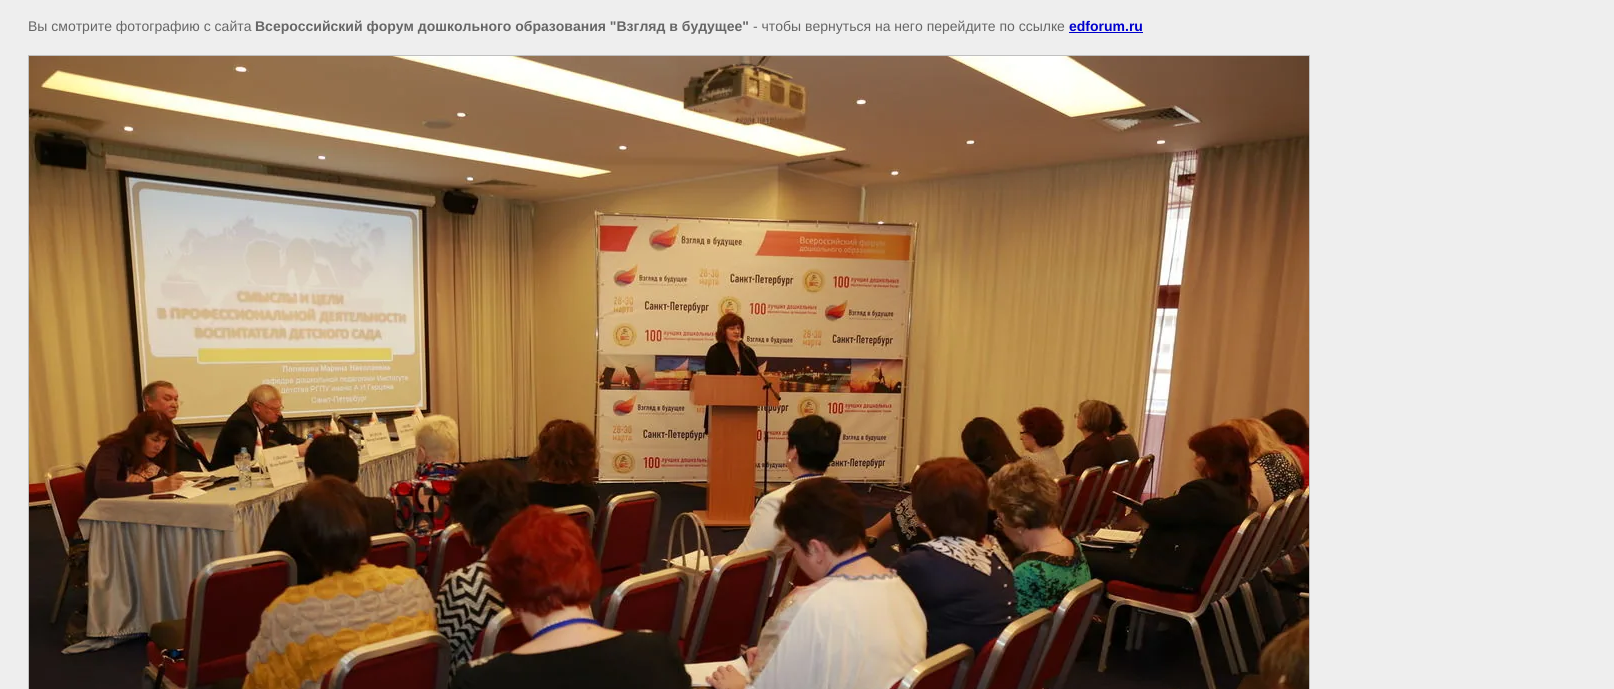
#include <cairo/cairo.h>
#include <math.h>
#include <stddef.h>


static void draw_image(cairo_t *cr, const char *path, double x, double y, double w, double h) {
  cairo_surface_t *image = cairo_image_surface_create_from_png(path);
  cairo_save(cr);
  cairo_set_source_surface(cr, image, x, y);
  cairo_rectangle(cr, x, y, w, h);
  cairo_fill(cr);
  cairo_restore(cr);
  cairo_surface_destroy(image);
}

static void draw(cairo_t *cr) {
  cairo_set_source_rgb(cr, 238 / 255.0, 238 / 255.0, 238 / 255.0);
  cairo_paint(cr);
  cairo_set_source_rgb(cr, 0, 0, 204 / 255.0);
  cairo_rectangle(cr, 1069, 32, 74, 1);
  cairo_fill(cr);
  cairo_rectangle(cr, 28.5, 55.5, 1281, 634);
  cairo_set_source_rgb(cr, 192 / 255.0, 192 / 255.0, 192 / 255.0);
  cairo_set_line_width(cr, 1);
  cairo_stroke(cr);
  draw_image(cr, "images/1.png", 29, 56, 1280, 633);
  cairo_select_font_face(cr, "Liberation Sans", CAIRO_FONT_SLANT_NORMAL, CAIRO_FONT_WEIGHT_NORMAL);
  cairo_set_font_size(cr, 14);
  cairo_set_source_rgb(cr, 102 / 255.0, 102 / 255.0, 102 / 255.0);
  cairo_move_to(cr, 28, 31);
  cairo_show_text(cr, "Вы смотрите фотографию с сайта");
  cairo_select_font_face(cr, "Liberation Sans", CAIRO_FONT_SLANT_NORMAL, CAIRO_FONT_WEIGHT_BOLD);
  cairo_move_to(cr, 255, 31);
  cairo_show_text(cr, "Всероссийский форум дошкольного образования \"Взгляд в будущее\"");
  cairo_select_font_face(cr, "Liberation Sans", CAIRO_FONT_SLANT_NORMAL, CAIRO_FONT_WEIGHT_NORMAL);
  cairo_move_to(cr, 753, 31);
  cairo_show_text(cr, "- чтобы вернуться на него перейдите по ссылке");
  cairo_select_font_face(cr, "Liberation Sans", CAIRO_FONT_SLANT_NORMAL, CAIRO_FONT_WEIGHT_BOLD);
  cairo_set_source_rgb(cr, 0, 0, 204 / 255.0);
  cairo_move_to(cr, 1069, 31);
  cairo_show_text(cr, "edforum.ru");
}

int main(void) {
  cairo_surface_t *surface = cairo_image_surface_create(CAIRO_FORMAT_RGB24, 1614, 689);
  cairo_t *cr = cairo_create(surface);
  cairo_font_options_t *options = cairo_font_options_create();
  cairo_font_options_set_hint_metrics(options, CAIRO_HINT_METRICS_OFF);
  cairo_font_options_set_hint_style(options, CAIRO_HINT_STYLE_NONE);
  cairo_set_font_options(cr, options);
  cairo_set_miter_limit(cr, 4);
  draw(cr);
  cairo_surface_write_to_png(surface, "out.png");
  cairo_font_options_destroy(options);
  cairo_destroy(cr);
  cairo_surface_destroy(surface);
  return 0;
}
